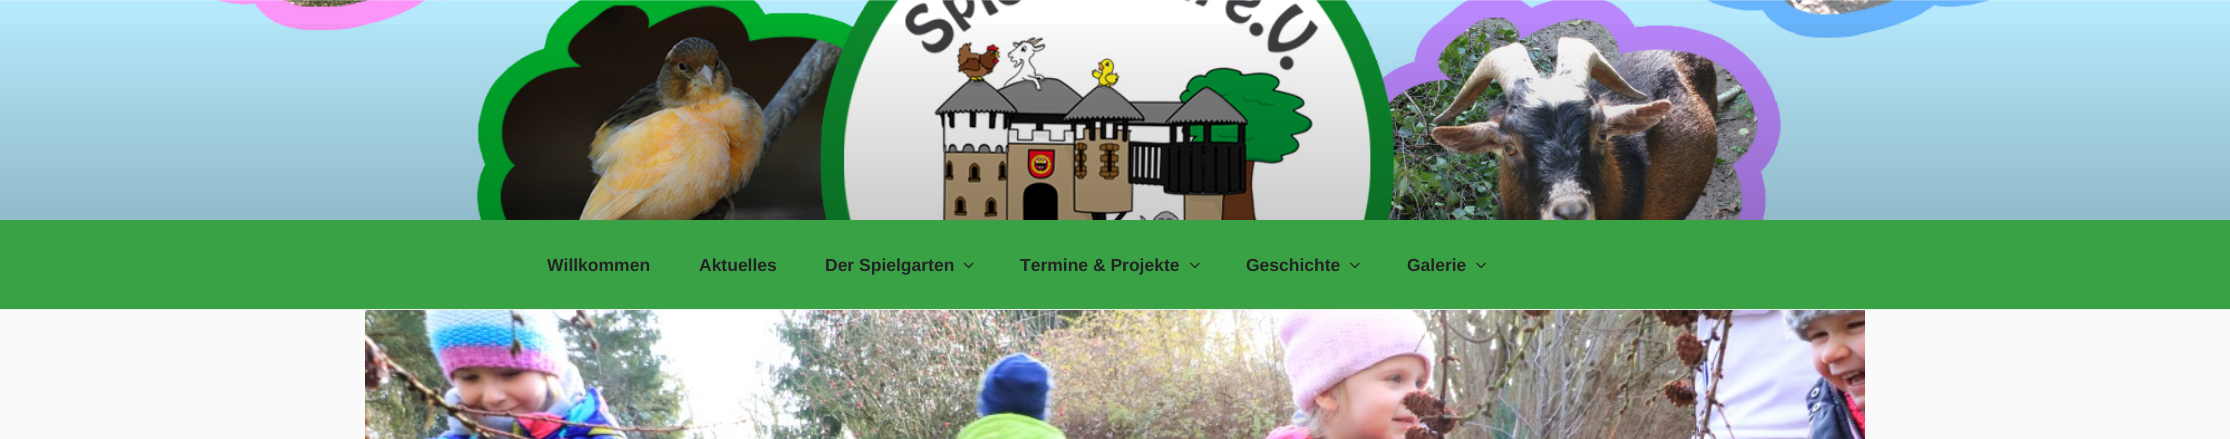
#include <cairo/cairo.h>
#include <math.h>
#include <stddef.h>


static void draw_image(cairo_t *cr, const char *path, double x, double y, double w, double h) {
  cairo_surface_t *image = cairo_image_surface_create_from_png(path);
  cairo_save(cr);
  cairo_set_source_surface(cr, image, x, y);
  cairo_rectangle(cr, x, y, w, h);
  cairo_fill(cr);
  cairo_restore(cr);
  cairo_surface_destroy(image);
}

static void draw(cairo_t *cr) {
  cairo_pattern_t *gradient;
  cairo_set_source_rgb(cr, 1, 1, 1);
  cairo_paint(cr);
  draw_image(cr, "images/1.png", 0, 0, 2230, 220);
  gradient = cairo_pattern_create_linear(1115, 0, 1115, 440);
  cairo_pattern_add_color_stop_rgba(gradient, 0, 0, 0, 0, 0);
  cairo_pattern_add_color_stop_rgba(gradient, 0.75, 0, 0, 0, 0.3);
  cairo_pattern_add_color_stop_rgba(gradient, 1, 0, 0, 0, 0.3);
  cairo_set_source(cr, gradient);
  cairo_pattern_destroy(gradient);
  cairo_rectangle(cr, 0, 24, 2230, 196);
  cairo_fill(cr);
  cairo_set_source_rgb(cr, 57 / 255.0, 162 / 255.0, 69 / 255.0);
  cairo_rectangle(cr, 0, 220, 2230, 89);
  cairo_fill(cr);
  cairo_set_source_rgb(cr, 238 / 255.0, 238 / 255.0, 238 / 255.0);
  cairo_rectangle(cr, 0, 309, 2230, 1);
  cairo_fill(cr);
  draw_image(cr, "images/2.png", 963, 262, 11, 7);
  draw_image(cr, "images/3.png", 1190, 262, 10, 7);
  draw_image(cr, "images/3.png", 1350, 262, 10, 7);
  draw_image(cr, "images/4.png", 1476, 262, 10, 7);
  cairo_set_source_rgb(cr, 250 / 255.0, 250 / 255.0, 250 / 255.0);
  cairo_rectangle(cr, 0, 310, 2230, 129);
  cairo_fill(cr);
  draw_image(cr, "images/5.png", 365, 310, 1500, 129);
  cairo_select_font_face(cr, "Liberation Sans", CAIRO_FONT_SLANT_NORMAL, CAIRO_FONT_WEIGHT_BOLD);
  cairo_set_font_size(cr, 17.5);
  cairo_set_source_rgb(cr, 36 / 255.0, 36 / 255.0, 36 / 255.0);
  cairo_move_to(cr, 547, 271);
  cairo_show_text(cr, "Willkommen");
  cairo_move_to(cr, 699, 271);
  cairo_show_text(cr, "Aktuelles");
  cairo_move_to(cr, 825, 271);
  cairo_show_text(cr, "Der Spielgarten");
  cairo_move_to(cr, 1020, 271);
  cairo_show_text(cr, "Termine & Projekte");
  cairo_move_to(cr, 1246, 271);
  cairo_show_text(cr, "Geschichte");
  cairo_move_to(cr, 1407, 271);
  cairo_show_text(cr, "Galerie");
}

int main(void) {
  cairo_surface_t *surface = cairo_image_surface_create(CAIRO_FORMAT_RGB24, 2230, 439);
  cairo_t *cr = cairo_create(surface);
  cairo_font_options_t *options = cairo_font_options_create();
  cairo_font_options_set_hint_metrics(options, CAIRO_HINT_METRICS_OFF);
  cairo_font_options_set_hint_style(options, CAIRO_HINT_STYLE_NONE);
  cairo_set_font_options(cr, options);
  cairo_set_miter_limit(cr, 4);
  draw(cr);
  cairo_surface_write_to_png(surface, "out.png");
  cairo_font_options_destroy(options);
  cairo_destroy(cr);
  cairo_surface_destroy(surface);
  return 0;
}
